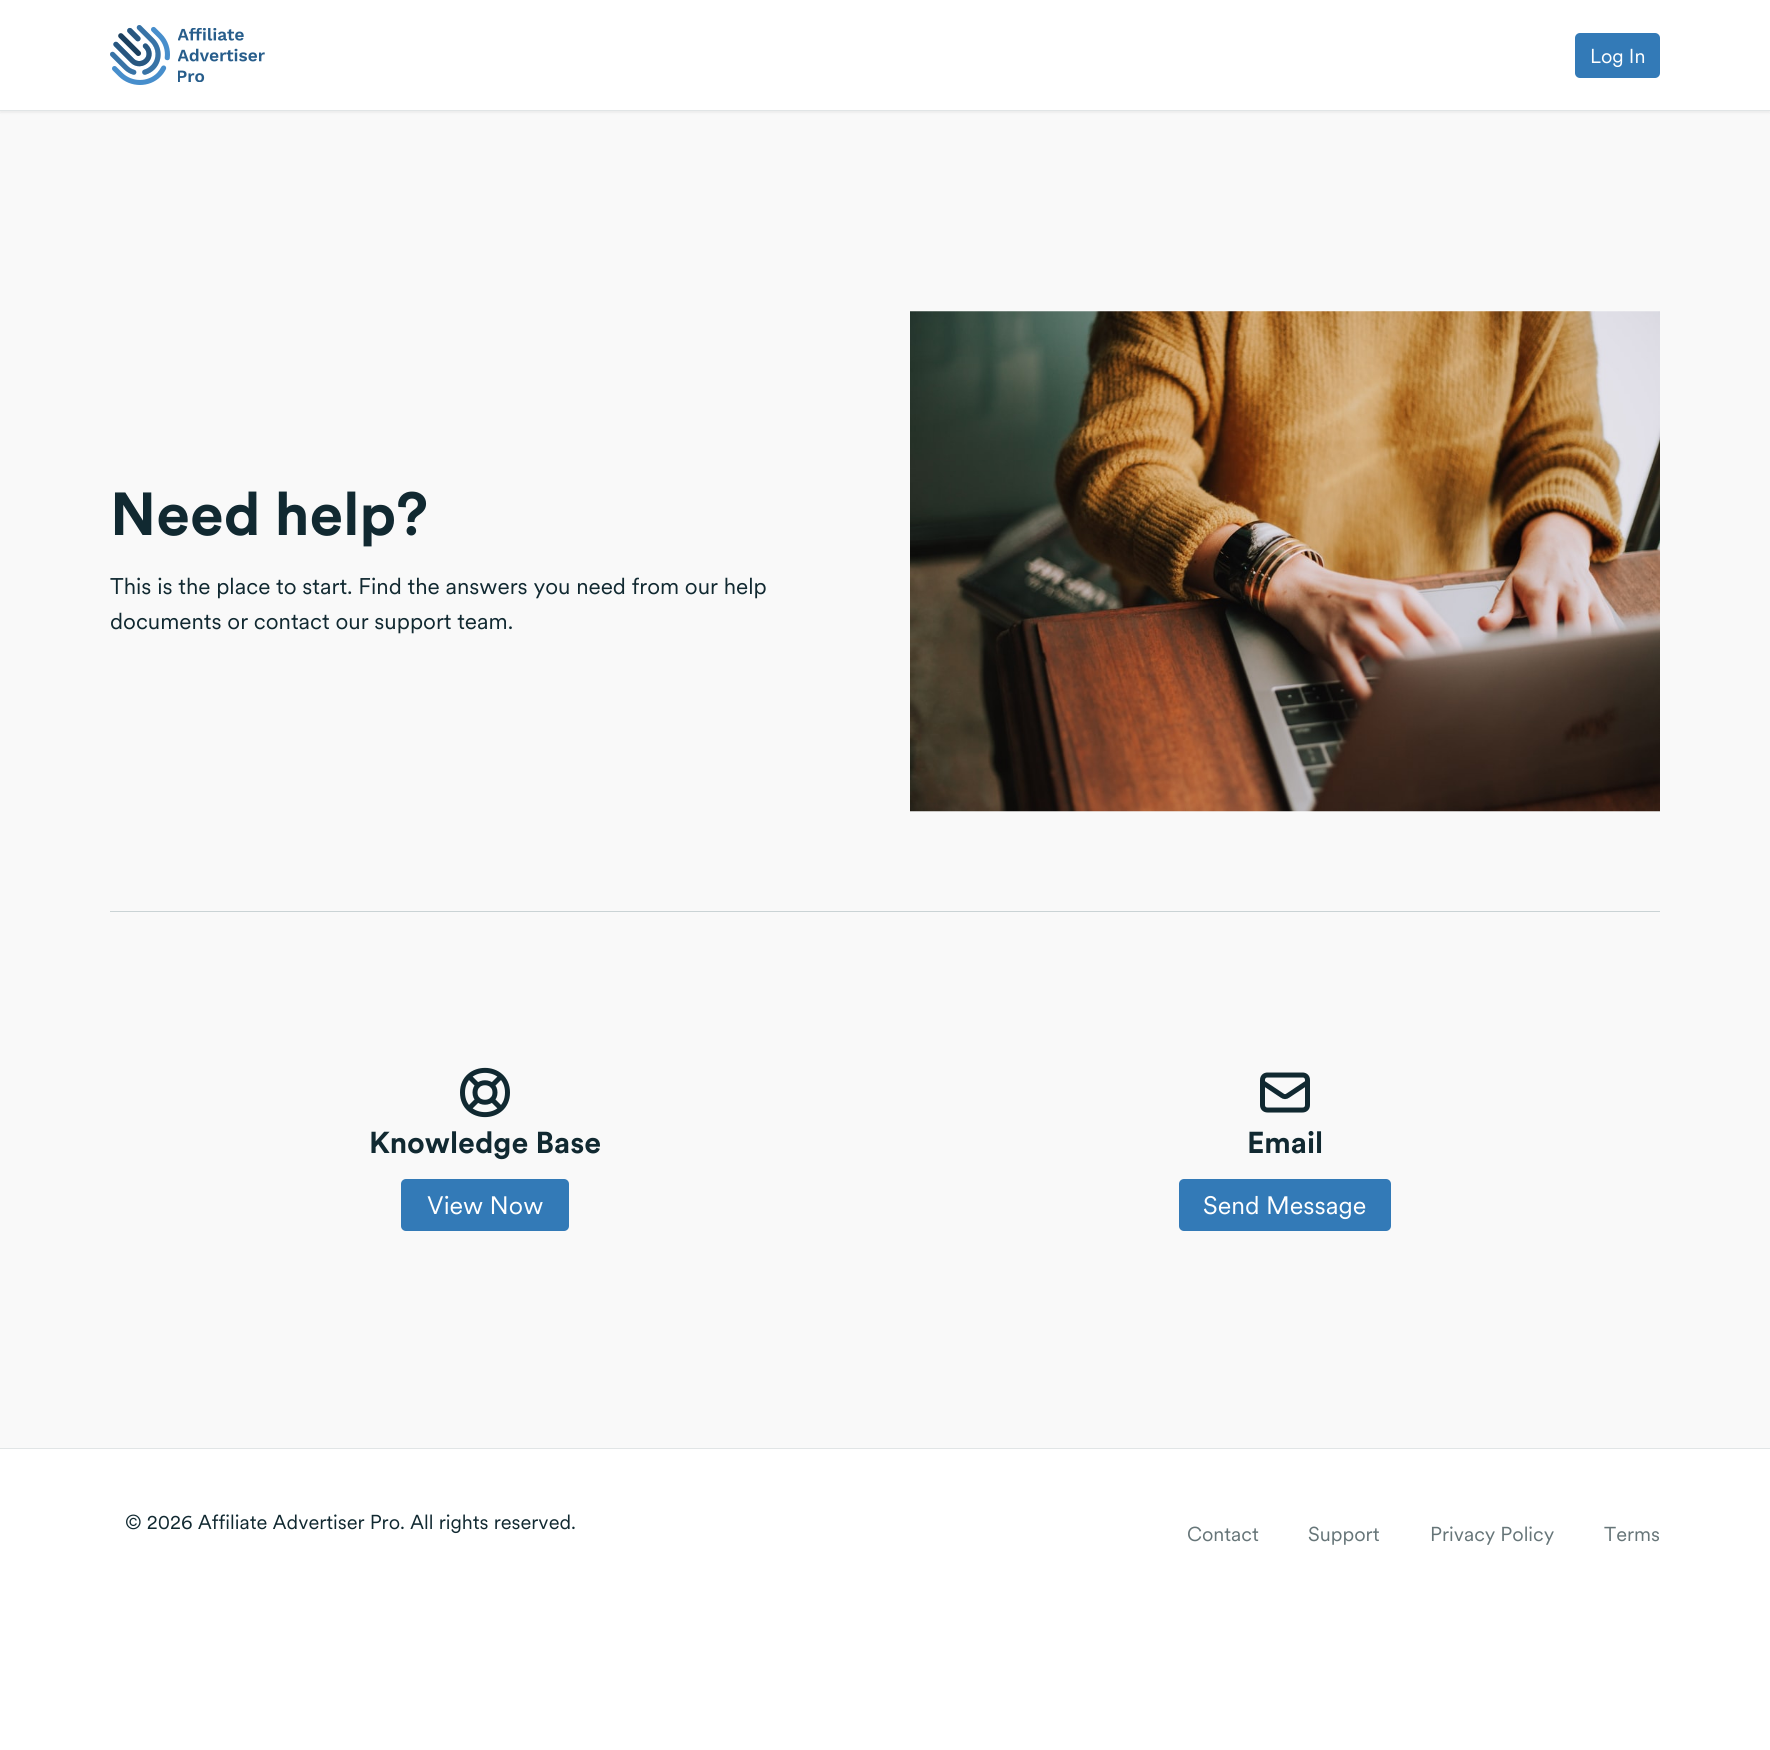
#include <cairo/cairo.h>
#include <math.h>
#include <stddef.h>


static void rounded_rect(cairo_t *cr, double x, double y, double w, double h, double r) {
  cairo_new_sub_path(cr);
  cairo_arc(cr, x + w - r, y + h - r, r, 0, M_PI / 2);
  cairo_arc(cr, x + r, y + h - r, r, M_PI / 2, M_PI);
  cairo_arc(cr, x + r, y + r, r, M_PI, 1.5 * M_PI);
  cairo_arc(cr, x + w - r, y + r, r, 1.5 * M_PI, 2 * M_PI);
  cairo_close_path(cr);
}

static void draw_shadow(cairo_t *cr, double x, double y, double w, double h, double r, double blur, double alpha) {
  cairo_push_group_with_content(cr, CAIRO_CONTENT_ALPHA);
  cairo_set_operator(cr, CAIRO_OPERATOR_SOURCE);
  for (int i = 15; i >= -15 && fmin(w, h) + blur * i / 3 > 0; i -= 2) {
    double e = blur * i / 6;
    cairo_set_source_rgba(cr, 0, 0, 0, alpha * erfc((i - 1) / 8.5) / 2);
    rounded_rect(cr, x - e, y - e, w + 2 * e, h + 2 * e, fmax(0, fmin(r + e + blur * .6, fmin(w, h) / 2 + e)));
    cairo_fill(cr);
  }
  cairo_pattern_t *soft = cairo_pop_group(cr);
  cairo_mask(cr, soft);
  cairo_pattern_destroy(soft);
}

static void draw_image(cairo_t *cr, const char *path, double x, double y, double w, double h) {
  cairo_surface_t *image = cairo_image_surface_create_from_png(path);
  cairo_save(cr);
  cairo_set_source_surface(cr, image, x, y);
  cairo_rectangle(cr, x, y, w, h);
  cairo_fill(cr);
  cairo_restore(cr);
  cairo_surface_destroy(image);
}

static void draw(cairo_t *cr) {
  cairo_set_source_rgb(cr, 1, 1, 1);
  cairo_paint(cr);
  cairo_set_source_rgb(cr, 249 / 255.0, 249 / 255.0, 249 / 255.0);
  cairo_rectangle(cr, 0, 111, 1770, 1337);
  cairo_fill(cr);
  cairo_set_source_rgb(cr, 0, 0, 0);
  draw_shadow(cr, 0, 1, 1770, 112, 0, 1, 0.05);
  cairo_set_source_rgb(cr, 1, 1, 1);
  cairo_rectangle(cr, 0, 0, 1770, 110);
  cairo_fill(cr);
  cairo_set_source_rgb(cr, 225 / 255.0, 229 / 255.0, 230 / 255.0);
  cairo_rectangle(cr, 0, 110, 1770, 1);
  cairo_fill(cr);
  draw_image(cr, "images/1.png", 110, 25, 155, 60);
  cairo_set_source_rgb(cr, 51 / 255.0, 122 / 255.0, 183 / 255.0);
  rounded_rect(cr, 1575, 33, 85, 45, 5);
  cairo_fill(cr);
  draw_image(cr, "images/2.png", 910, 311, 750, 501);
  cairo_set_source_rgb(cr, 202 / 255.0, 211 / 255.0, 213 / 255.0);
  cairo_rectangle(cr, 110, 911, 1550, 1);
  cairo_fill(cr);
  cairo_new_path(cr);
  cairo_move_to(cr, 501, 1076.5);
  cairo_line_to(cr, 492, 1085.5);
  cairo_move_to(cr, 492, 1099.5);
  cairo_line_to(cr, 501, 1108.5);
  cairo_move_to(cr, 478, 1085.5);
  cairo_line_to(cr, 469, 1076.5);
  cairo_move_to(cr, 478, 1099.5);
  cairo_line_to(cr, 469, 1108.5);
  cairo_move_to(cr, 507.5, 1092.5);
  cairo_curve_to(cr, 507.5, 1122, 462.5, 1122, 462.5, 1092.5);
  cairo_curve_to(cr, 462.5, 1063, 507.5, 1063, 507.5, 1092.5);
  cairo_close_path(cr);
  cairo_move_to(cr, 495, 1092.5);
  cairo_curve_to(cr, 495, 1105.5, 475, 1105.5, 475, 1092.5);
  cairo_curve_to(cr, 475, 1079.5, 495, 1079.5, 495, 1092.5);
  cairo_close_path(cr);
  cairo_set_source_rgb(cr, 17 / 255.0, 41 / 255.0, 49 / 255.0);
  cairo_set_line_width(cr, 5);
  cairo_set_line_cap(cr, CAIRO_LINE_CAP_ROUND);
  cairo_set_line_join(cr, CAIRO_LINE_JOIN_ROUND);
  cairo_stroke(cr);
  cairo_set_source_rgb(cr, 51 / 255.0, 122 / 255.0, 183 / 255.0);
  rounded_rect(cr, 401, 1179, 168, 52, 5);
  cairo_fill(cr);
  cairo_new_path(cr);
  cairo_move_to(cr, 1262.5, 1082.5);
  cairo_line_to(cr, 1282, 1095.5);
  cairo_curve_to(cr, 1284, 1097, 1286, 1097, 1288, 1095.5);
  cairo_line_to(cr, 1307.5, 1082.5);
  cairo_move_to(cr, 1267.5, 1110);
  cairo_line_to(cr, 1302.5, 1110);
  cairo_curve_to(cr, 1305.5, 1110, 1307.5, 1108, 1307.5, 1105);
  cairo_line_to(cr, 1307.5, 1080);
  cairo_curve_to(cr, 1307.5, 1077, 1305.5, 1075, 1302.5, 1075);
  cairo_line_to(cr, 1267.5, 1075);
  cairo_curve_to(cr, 1264.5, 1075, 1262.5, 1077, 1262.5, 1080);
  cairo_line_to(cr, 1262.5, 1105);
  cairo_curve_to(cr, 1262.5, 1108, 1264.5, 1110, 1267.5, 1110);
  cairo_close_path(cr);
  cairo_set_source_rgb(cr, 17 / 255.0, 41 / 255.0, 49 / 255.0);
  cairo_stroke(cr);
  cairo_set_source_rgb(cr, 51 / 255.0, 122 / 255.0, 183 / 255.0);
  rounded_rect(cr, 1179, 1179, 212, 52, 5);
  cairo_fill(cr);
  cairo_set_source_rgb(cr, 225 / 255.0, 229 / 255.0, 230 / 255.0);
  cairo_rectangle(cr, 0, 1448, 1770, 1);
  cairo_fill(cr);
  cairo_select_font_face(cr, "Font", CAIRO_FONT_SLANT_NORMAL, CAIRO_FONT_WEIGHT_NORMAL);
  cairo_set_font_size(cr, 20);
  cairo_set_source_rgb(cr, 1, 1, 1);
  cairo_move_to(cr, 1590, 63);
  cairo_show_text(cr, "Log In");
  cairo_select_font_face(cr, "Font", CAIRO_FONT_SLANT_NORMAL, CAIRO_FONT_WEIGHT_BOLD);
  cairo_set_font_size(cr, 60);
  cairo_set_source_rgb(cr, 17 / 255.0, 41 / 255.0, 49 / 255.0);
  cairo_move_to(cr, 110, 535);
  cairo_show_text(cr, "Need help?");
  cairo_select_font_face(cr, "Font", CAIRO_FONT_SLANT_NORMAL, CAIRO_FONT_WEIGHT_NORMAL);
  cairo_set_font_size(cr, 22.5);
  cairo_move_to(cr, 110, 594);
  cairo_show_text(cr, "This is the place to start. Find the answers you need from our help");
  cairo_move_to(cr, 110, 629);
  cairo_show_text(cr, "documents or contact our support team.");
  cairo_select_font_face(cr, "Font", CAIRO_FONT_SLANT_NORMAL, CAIRO_FONT_WEIGHT_BOLD);
  cairo_set_font_size(cr, 30);
  cairo_move_to(cr, 369, 1153);
  cairo_show_text(cr, "Knowledge Base");
  cairo_select_font_face(cr, "Font", CAIRO_FONT_SLANT_NORMAL, CAIRO_FONT_WEIGHT_NORMAL);
  cairo_set_font_size(cr, 25);
  cairo_set_source_rgb(cr, 1, 1, 1);
  cairo_move_to(cr, 427, 1214);
  cairo_show_text(cr, "View Now");
  cairo_select_font_face(cr, "Font", CAIRO_FONT_SLANT_NORMAL, CAIRO_FONT_WEIGHT_BOLD);
  cairo_set_font_size(cr, 30);
  cairo_set_source_rgb(cr, 17 / 255.0, 41 / 255.0, 49 / 255.0);
  cairo_move_to(cr, 1247, 1153);
  cairo_show_text(cr, "Email");
  cairo_select_font_face(cr, "Font", CAIRO_FONT_SLANT_NORMAL, CAIRO_FONT_WEIGHT_NORMAL);
  cairo_set_font_size(cr, 25);
  cairo_set_source_rgb(cr, 1, 1, 1);
  cairo_move_to(cr, 1203, 1214);
  cairo_show_text(cr, "Send Message");
  cairo_set_font_size(cr, 20);
  cairo_set_source_rgb(cr, 17 / 255.0, 41 / 255.0, 49 / 255.0);
  cairo_move_to(cr, 125, 1529);
  cairo_show_text(cr, "© 2026 Affiliate Advertiser Pro. All rights reserved.");
  cairo_set_source_rgb(cr, 102 / 255.0, 117 / 255.0, 120 / 255.0);
  cairo_move_to(cr, 1187, 1541);
  cairo_show_text(cr, "Contact");
  cairo_move_to(cr, 1308, 1541);
  cairo_show_text(cr, "Support");
  cairo_move_to(cr, 1430, 1541);
  cairo_show_text(cr, "Privacy Policy");
  cairo_move_to(cr, 1604, 1541);
  cairo_show_text(cr, "Terms");
}

int main(void) {
  cairo_surface_t *surface = cairo_image_surface_create(CAIRO_FORMAT_RGB24, 1770, 1750);
  cairo_t *cr = cairo_create(surface);
  cairo_font_options_t *options = cairo_font_options_create();
  cairo_font_options_set_hint_metrics(options, CAIRO_HINT_METRICS_OFF);
  cairo_font_options_set_hint_style(options, CAIRO_HINT_STYLE_NONE);
  cairo_set_font_options(cr, options);
  cairo_set_miter_limit(cr, 4);
  draw(cr);
  cairo_surface_write_to_png(surface, "out.png");
  cairo_font_options_destroy(options);
  cairo_destroy(cr);
  cairo_surface_destroy(surface);
  return 0;
}
